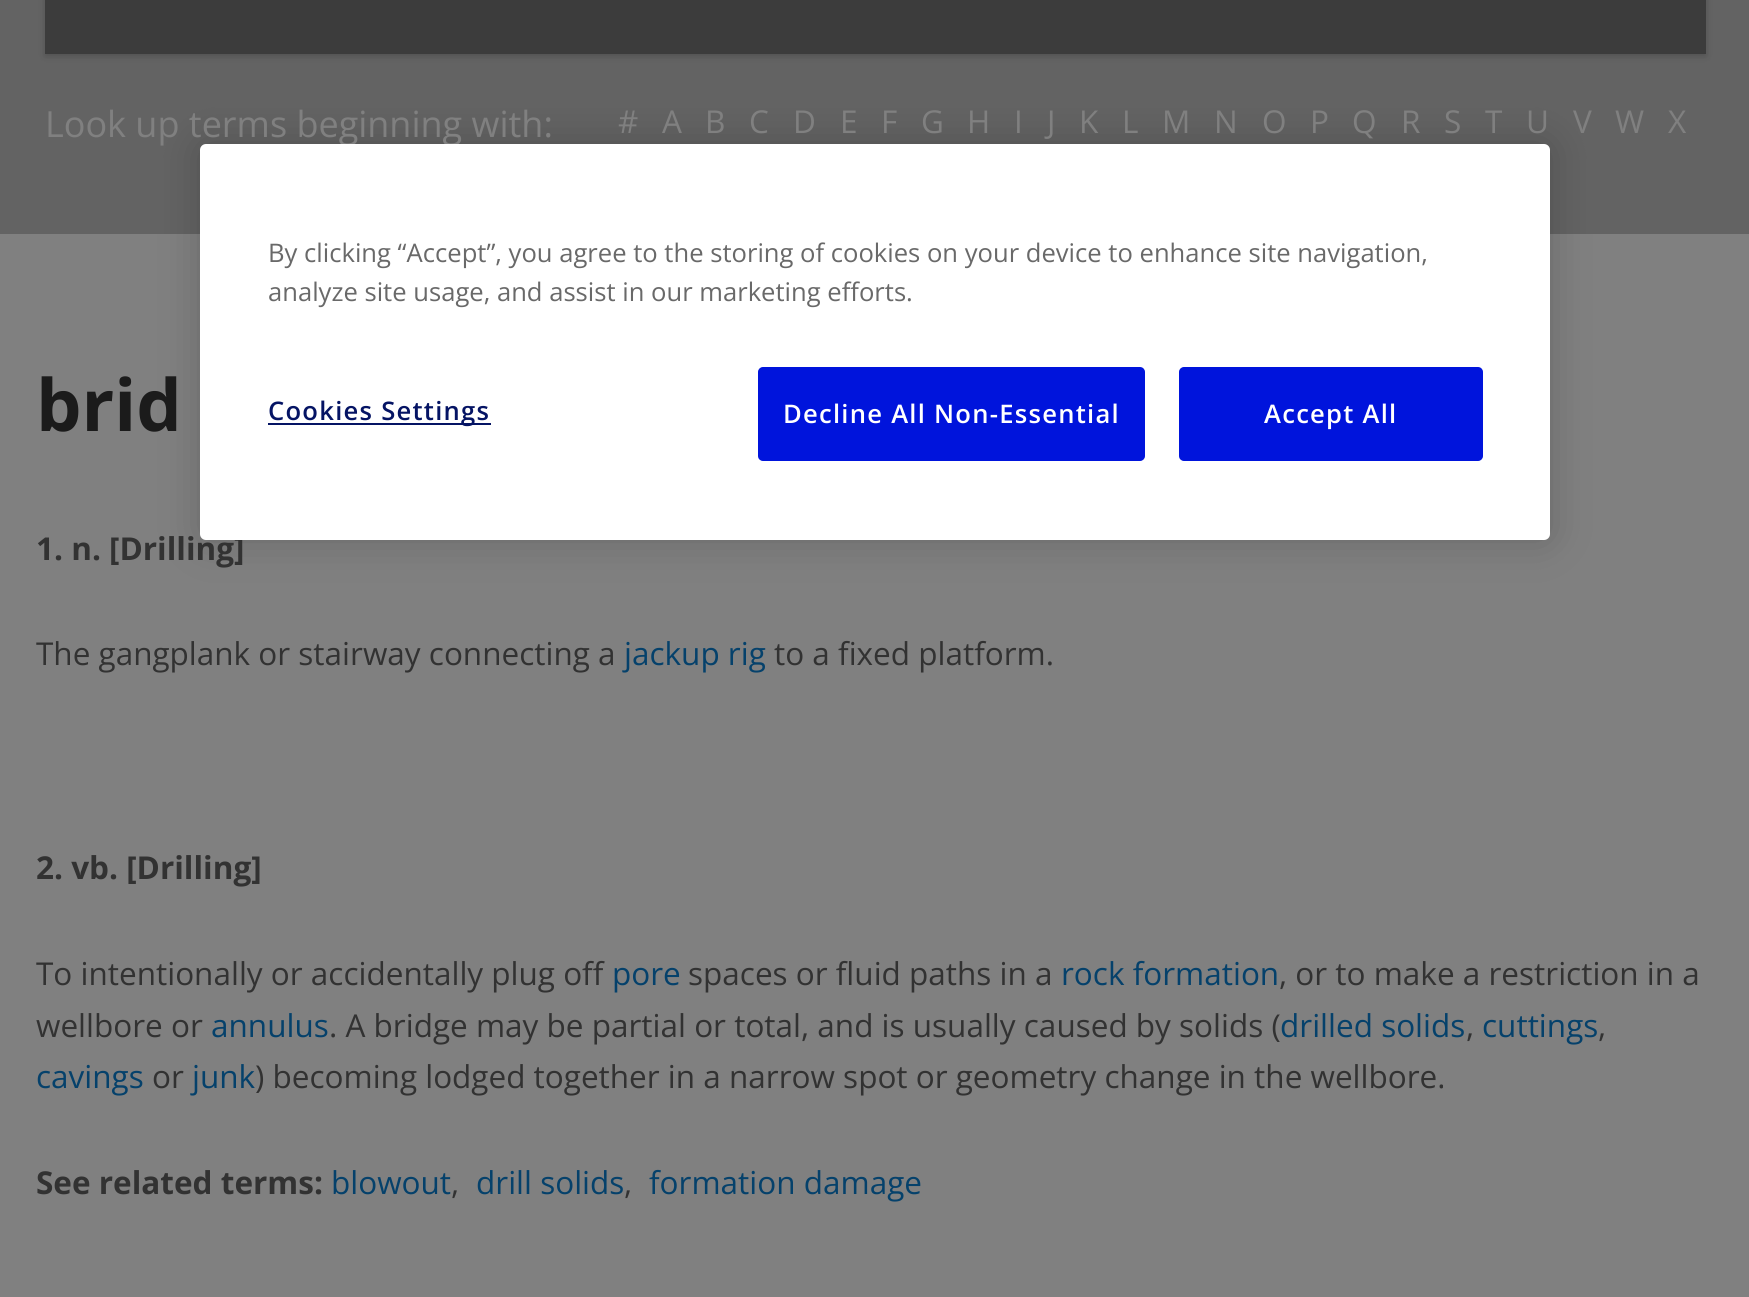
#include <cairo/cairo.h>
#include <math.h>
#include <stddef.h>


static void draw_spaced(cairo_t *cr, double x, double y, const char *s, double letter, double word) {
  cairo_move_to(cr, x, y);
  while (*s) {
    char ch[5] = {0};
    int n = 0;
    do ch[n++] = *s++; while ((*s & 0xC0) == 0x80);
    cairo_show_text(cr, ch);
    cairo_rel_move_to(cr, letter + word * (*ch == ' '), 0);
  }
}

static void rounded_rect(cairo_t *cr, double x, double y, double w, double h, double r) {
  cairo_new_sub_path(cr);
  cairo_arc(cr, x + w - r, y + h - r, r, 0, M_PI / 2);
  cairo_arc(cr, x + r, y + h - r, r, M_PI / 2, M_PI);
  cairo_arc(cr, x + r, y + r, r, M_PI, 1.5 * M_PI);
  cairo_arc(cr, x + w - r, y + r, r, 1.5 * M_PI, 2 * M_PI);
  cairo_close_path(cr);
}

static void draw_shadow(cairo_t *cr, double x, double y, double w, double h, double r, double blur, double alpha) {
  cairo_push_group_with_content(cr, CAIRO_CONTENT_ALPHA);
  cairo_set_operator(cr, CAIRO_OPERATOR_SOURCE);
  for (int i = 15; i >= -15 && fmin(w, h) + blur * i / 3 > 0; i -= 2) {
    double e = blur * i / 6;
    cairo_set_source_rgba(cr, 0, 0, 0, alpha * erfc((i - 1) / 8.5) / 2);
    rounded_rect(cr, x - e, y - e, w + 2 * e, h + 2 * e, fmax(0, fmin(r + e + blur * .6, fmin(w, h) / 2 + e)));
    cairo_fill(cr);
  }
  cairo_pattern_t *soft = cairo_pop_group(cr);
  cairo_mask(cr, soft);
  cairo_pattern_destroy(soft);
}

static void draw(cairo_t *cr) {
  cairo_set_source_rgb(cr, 128 / 255.0, 128 / 255.0, 128 / 255.0);
  cairo_paint(cr);
  cairo_set_source_rgb(cr, 99 / 255.0, 99 / 255.0, 99 / 255.0);
  cairo_rectangle(cr, 0, 0, 1749, 234);
  cairo_fill(cr);
  cairo_set_source_rgb(cr, 19 / 255.0, 19 / 255.0, 19 / 255.0);
  draw_shadow(cr, 45, -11, 1661, 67, 0, 3.5, 0.24);
  cairo_set_source_rgb(cr, 60 / 255.0, 60 / 255.0, 60 / 255.0);
  cairo_rectangle(cr, 45, 0, 1661, 54);
  cairo_fill(cr);
  cairo_set_source_rgb(cr, 0, 0, 0);
  draw_shadow(cr, 200, 144, 1350, 396, 6, 20, 0.2);
  cairo_select_font_face(cr, "Open Sans", CAIRO_FONT_SLANT_NORMAL, CAIRO_FONT_WEIGHT_NORMAL);
  cairo_set_font_size(cr, 36);
  cairo_set_source_rgb(cr, 128 / 255.0, 128 / 255.0, 128 / 255.0);
  cairo_move_to(cr, 45, 137);
  cairo_show_text(cr, "Look up terms beginning with:");
  cairo_set_font_size(cr, 31.5);
  cairo_move_to(cr, 618, 133);
  cairo_show_text(cr, "#");
  cairo_move_to(cr, 662, 133);
  cairo_show_text(cr, "A");
  cairo_move_to(cr, 705, 133);
  cairo_show_text(cr, "B");
  cairo_move_to(cr, 749, 133);
  cairo_show_text(cr, "C");
  cairo_move_to(cr, 793, 133);
  cairo_show_text(cr, "D");
  cairo_move_to(cr, 840, 133);
  cairo_show_text(cr, "E");
  cairo_move_to(cr, 881, 133);
  cairo_show_text(cr, "F");
  cairo_move_to(cr, 921, 133);
  cairo_show_text(cr, "G");
  cairo_move_to(cr, 967, 133);
  cairo_show_text(cr, "H");
  cairo_move_to(cr, 1014, 133);
  cairo_show_text(cr, "I");
  cairo_move_to(cr, 1047, 133);
  cairo_show_text(cr, "J");
  cairo_move_to(cr, 1079, 133);
  cairo_show_text(cr, "K");
  cairo_move_to(cr, 1122, 133);
  cairo_show_text(cr, "L");
  cairo_move_to(cr, 1162, 133);
  cairo_show_text(cr, "M");
  cairo_move_to(cr, 1214, 133);
  cairo_show_text(cr, "N");
  cairo_move_to(cr, 1262, 133);
  cairo_show_text(cr, "O");
  cairo_move_to(cr, 1310, 133);
  cairo_show_text(cr, "P");
  cairo_move_to(cr, 1352, 133);
  cairo_show_text(cr, "Q");
  cairo_move_to(cr, 1401, 133);
  cairo_show_text(cr, "R");
  cairo_move_to(cr, 1444, 133);
  cairo_show_text(cr, "S");
  cairo_move_to(cr, 1485, 133);
  cairo_show_text(cr, "T");
  cairo_move_to(cr, 1526, 133);
  cairo_show_text(cr, "U");
  cairo_move_to(cr, 1573, 133);
  cairo_show_text(cr, "V");
  cairo_move_to(cr, 1615, 133);
  cairo_show_text(cr, "W");
  cairo_move_to(cr, 1668, 133);
  cairo_show_text(cr, "X");
  cairo_select_font_face(cr, "Open Sans", CAIRO_FONT_SLANT_NORMAL, CAIRO_FONT_WEIGHT_BOLD);
  cairo_set_font_size(cr, 72);
  cairo_set_source_rgb(cr, 27 / 255.0, 27 / 255.0, 27 / 255.0);
  cairo_move_to(cr, 36, 431);
  cairo_show_text(cr, "brid");
  cairo_set_font_size(cr, 31.5);
  cairo_set_source_rgb(cr, 50 / 255.0, 50 / 255.0, 50 / 255.0);
  cairo_move_to(cr, 36, 560);
  cairo_show_text(cr, "1. n. [Drilling]");
  cairo_select_font_face(cr, "Open Sans", CAIRO_FONT_SLANT_NORMAL, CAIRO_FONT_WEIGHT_NORMAL);
  cairo_move_to(cr, 36, 665);
  cairo_show_text(cr, "The gangplank or stairway connecting a");
  cairo_set_source_rgb(cr, 5 / 255.0, 65 / 255.0, 107 / 255.0);
  cairo_move_to(cr, 624, 665);
  cairo_show_text(cr, "jackup rig");
  cairo_set_source_rgb(cr, 50 / 255.0, 50 / 255.0, 50 / 255.0);
  cairo_move_to(cr, 774, 665);
  cairo_show_text(cr, "to a fixed platform.");
  cairo_select_font_face(cr, "Open Sans", CAIRO_FONT_SLANT_NORMAL, CAIRO_FONT_WEIGHT_BOLD);
  cairo_move_to(cr, 36, 879);
  cairo_show_text(cr, "2. vb. [Drilling]");
  cairo_select_font_face(cr, "Open Sans", CAIRO_FONT_SLANT_NORMAL, CAIRO_FONT_WEIGHT_NORMAL);
  cairo_move_to(cr, 36, 985);
  cairo_show_text(cr, "To intentionally or accidentally plug off");
  cairo_set_source_rgb(cr, 5 / 255.0, 65 / 255.0, 107 / 255.0);
  cairo_move_to(cr, 612, 985);
  cairo_show_text(cr, "pore");
  cairo_set_source_rgb(cr, 50 / 255.0, 50 / 255.0, 50 / 255.0);
  cairo_move_to(cr, 688, 985);
  cairo_show_text(cr, "spaces or fluid paths in a");
  cairo_set_source_rgb(cr, 5 / 255.0, 65 / 255.0, 107 / 255.0);
  cairo_move_to(cr, 1061, 985);
  cairo_show_text(cr, "rock formation");
  cairo_set_source_rgb(cr, 50 / 255.0, 50 / 255.0, 50 / 255.0);
  cairo_move_to(cr, 1279, 985);
  cairo_show_text(cr, ", or to make a restriction in a");
  cairo_move_to(cr, 36, 1037);
  cairo_show_text(cr, "wellbore or");
  cairo_set_source_rgb(cr, 5 / 255.0, 65 / 255.0, 107 / 255.0);
  cairo_move_to(cr, 211, 1037);
  cairo_show_text(cr, "annulus");
  cairo_set_source_rgb(cr, 50 / 255.0, 50 / 255.0, 50 / 255.0);
  cairo_move_to(cr, 329, 1037);
  cairo_show_text(cr, ". A bridge may be partial or total, and is usually caused by solids (");
  cairo_set_source_rgb(cr, 5 / 255.0, 65 / 255.0, 107 / 255.0);
  cairo_move_to(cr, 1280, 1037);
  cairo_show_text(cr, "drilled solids");
  cairo_set_source_rgb(cr, 50 / 255.0, 50 / 255.0, 50 / 255.0);
  cairo_move_to(cr, 1466, 1037);
  cairo_show_text(cr, ",");
  cairo_set_source_rgb(cr, 5 / 255.0, 65 / 255.0, 107 / 255.0);
  cairo_move_to(cr, 1482, 1037);
  cairo_show_text(cr, "cuttings");
  cairo_set_source_rgb(cr, 50 / 255.0, 50 / 255.0, 50 / 255.0);
  cairo_move_to(cr, 1598, 1037);
  cairo_show_text(cr, ",");
  cairo_set_source_rgb(cr, 5 / 255.0, 65 / 255.0, 107 / 255.0);
  cairo_move_to(cr, 36, 1088);
  cairo_show_text(cr, "cavings");
  cairo_set_source_rgb(cr, 50 / 255.0, 50 / 255.0, 50 / 255.0);
  cairo_move_to(cr, 152, 1088);
  cairo_show_text(cr, "or");
  cairo_set_source_rgb(cr, 5 / 255.0, 65 / 255.0, 107 / 255.0);
  cairo_move_to(cr, 192, 1088);
  cairo_show_text(cr, "junk");
  cairo_set_source_rgb(cr, 50 / 255.0, 50 / 255.0, 50 / 255.0);
  cairo_move_to(cr, 255, 1088);
  cairo_show_text(cr, ") becoming lodged together in a narrow spot or geometry change in the wellbore.");
  cairo_select_font_face(cr, "Open Sans", CAIRO_FONT_SLANT_NORMAL, CAIRO_FONT_WEIGHT_BOLD);
  cairo_move_to(cr, 36, 1194);
  cairo_show_text(cr, "See related terms:");
  cairo_select_font_face(cr, "Open Sans", CAIRO_FONT_SLANT_NORMAL, CAIRO_FONT_WEIGHT_NORMAL);
  cairo_set_source_rgb(cr, 5 / 255.0, 65 / 255.0, 107 / 255.0);
  cairo_move_to(cr, 331, 1194);
  cairo_show_text(cr, "blowout");
  cairo_set_source_rgb(cr, 50 / 255.0, 50 / 255.0, 50 / 255.0);
  cairo_move_to(cr, 451, 1194);
  cairo_show_text(cr, ",");
  cairo_set_source_rgb(cr, 5 / 255.0, 65 / 255.0, 107 / 255.0);
  cairo_move_to(cr, 476, 1194);
  cairo_show_text(cr, "drill solids");
  cairo_set_source_rgb(cr, 50 / 255.0, 50 / 255.0, 50 / 255.0);
  cairo_move_to(cr, 624, 1194);
  cairo_show_text(cr, ",");
  cairo_set_source_rgb(cr, 5 / 255.0, 65 / 255.0, 107 / 255.0);
  cairo_move_to(cr, 649, 1194);
  cairo_show_text(cr, "formation damage");
  cairo_set_source_rgb(cr, 1, 1, 1);
  rounded_rect(cr, 200, 144, 1350, 396, 6);
  cairo_fill(cr);
  cairo_set_font_size(cr, 25.6);
  cairo_set_source_rgb(cr, 105 / 255.0, 105 / 255.0, 105 / 255.0);
  cairo_move_to(cr, 268, 262);
  cairo_show_text(cr, "By clicking “Accept”, you agree to the storing of cookies on your device to enhance site navigation,");
  cairo_move_to(cr, 268, 301);
  cairo_show_text(cr, "analyze site usage, and assist in our marketing efforts.");
  cairo_set_source_rgb(cr, 5 / 255.0, 20 / 255.0, 100 / 255.0);
  cairo_rectangle(cr, 268, 423, 223, 2);
  cairo_fill(cr);
  cairo_select_font_face(cr, "Open Sans SemiBold", CAIRO_FONT_SLANT_NORMAL, CAIRO_FONT_WEIGHT_NORMAL);
  draw_spaced(cr, 268, 420, "Cookies Settings", 1.25, 0);
  cairo_set_source_rgb(cr, 0, 20 / 255.0, 220 / 255.0);
  rounded_rect(cr, 759, 368, 385, 92, 4);
  cairo_fill_preserve(cr);
  cairo_stroke(cr);
  cairo_set_source_rgb(cr, 1, 1, 1);
  draw_spaced(cr, 783, 423, "Decline All Non-Essential", 1.25, 0);
  cairo_set_source_rgb(cr, 0, 20 / 255.0, 220 / 255.0);
  rounded_rect(cr, 1180, 368, 302, 92, 4);
  cairo_fill_preserve(cr);
  cairo_stroke(cr);
  cairo_set_source_rgb(cr, 1, 1, 1);
  draw_spaced(cr, 1264, 423, "Accept All", 1.25, 0);
}

int main(void) {
  cairo_surface_t *surface = cairo_image_surface_create(CAIRO_FORMAT_RGB24, 1749, 1297);
  cairo_t *cr = cairo_create(surface);
  cairo_font_options_t *options = cairo_font_options_create();
  cairo_font_options_set_hint_metrics(options, CAIRO_HINT_METRICS_OFF);
  cairo_font_options_set_hint_style(options, CAIRO_HINT_STYLE_NONE);
  cairo_set_font_options(cr, options);
  cairo_set_miter_limit(cr, 4);
  draw(cr);
  cairo_surface_write_to_png(surface, "out.png");
  cairo_font_options_destroy(options);
  cairo_destroy(cr);
  cairo_surface_destroy(surface);
  return 0;
}
